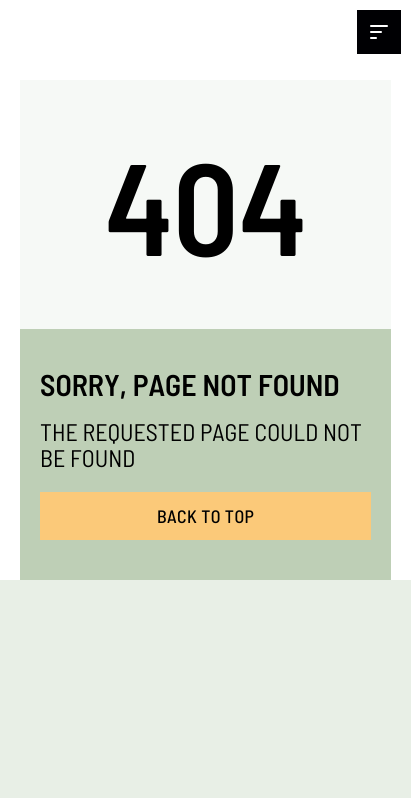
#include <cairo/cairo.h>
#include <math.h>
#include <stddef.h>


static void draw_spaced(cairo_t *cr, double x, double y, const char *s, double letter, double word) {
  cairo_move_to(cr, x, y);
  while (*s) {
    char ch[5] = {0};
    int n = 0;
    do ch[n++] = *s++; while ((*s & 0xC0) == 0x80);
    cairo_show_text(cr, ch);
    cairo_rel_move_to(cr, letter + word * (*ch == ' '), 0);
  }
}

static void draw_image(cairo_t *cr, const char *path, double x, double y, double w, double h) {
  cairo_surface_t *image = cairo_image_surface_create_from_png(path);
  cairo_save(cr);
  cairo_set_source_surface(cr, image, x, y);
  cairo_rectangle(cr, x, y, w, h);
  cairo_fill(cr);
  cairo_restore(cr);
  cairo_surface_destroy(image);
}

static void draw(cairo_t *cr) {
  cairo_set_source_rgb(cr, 1, 1, 1);
  cairo_paint(cr);
  cairo_set_source_rgb(cr, 0, 0, 3 / 255.0);
  cairo_rectangle(cr, 357, 10, 44, 44);
  cairo_fill(cr);
  draw_image(cr, "images/1.png", 370, 25, 18, 14);
  cairo_set_source_rgb(cr, 246 / 255.0, 249 / 255.0, 246 / 255.0);
  cairo_rectangle(cr, 20, 80, 371, 249);
  cairo_fill(cr);
  cairo_set_source_rgb(cr, 190 / 255.0, 207 / 255.0, 182 / 255.0);
  cairo_rectangle(cr, 20, 329, 371, 251);
  cairo_fill(cr);
  cairo_set_source_rgb(cr, 251 / 255.0, 201 / 255.0, 121 / 255.0);
  cairo_rectangle(cr, 40, 492, 331, 48);
  cairo_fill(cr);
  cairo_set_source_rgb(cr, 232 / 255.0, 239 / 255.0, 230 / 255.0);
  cairo_rectangle(cr, 0, 580, 411, 218);
  cairo_fill(cr);
  cairo_select_font_face(cr, "Barlow Semi Condensed SemiBold", CAIRO_FONT_SLANT_NORMAL, CAIRO_FONT_WEIGHT_NORMAL);
  cairo_set_font_size(cr, 130);
  cairo_set_source_rgb(cr, 0, 0, 0);
  cairo_move_to(cr, 105, 256);
  cairo_show_text(cr, "404");
  cairo_set_font_size(cr, 30);
  cairo_move_to(cr, 40, 396);
  cairo_show_text(cr, "SORRY, PAGE NOT FOUND");
  cairo_select_font_face(cr, "Barlow Semi Condensed", CAIRO_FONT_SLANT_NORMAL, CAIRO_FONT_WEIGHT_NORMAL);
  cairo_set_font_size(cr, 24);
  cairo_move_to(cr, 40, 441);
  cairo_show_text(cr, "THE REQUESTED PAGE COULD NOT");
  cairo_move_to(cr, 40, 467);
  cairo_show_text(cr, "BE FOUND");
  cairo_select_font_face(cr, "Barlow Semi Condensed Medium", CAIRO_FONT_SLANT_NORMAL, CAIRO_FONT_WEIGHT_NORMAL);
  cairo_set_font_size(cr, 18);
  draw_spaced(cr, 157, 523, "BACK TO TOP", 0.4, 0);
}

int main(void) {
  cairo_surface_t *surface = cairo_image_surface_create(CAIRO_FORMAT_RGB24, 411, 798);
  cairo_t *cr = cairo_create(surface);
  cairo_font_options_t *options = cairo_font_options_create();
  cairo_font_options_set_hint_metrics(options, CAIRO_HINT_METRICS_OFF);
  cairo_font_options_set_hint_style(options, CAIRO_HINT_STYLE_NONE);
  cairo_set_font_options(cr, options);
  cairo_set_miter_limit(cr, 4);
  draw(cr);
  cairo_surface_write_to_png(surface, "out.png");
  cairo_font_options_destroy(options);
  cairo_destroy(cr);
  cairo_surface_destroy(surface);
  return 0;
}
